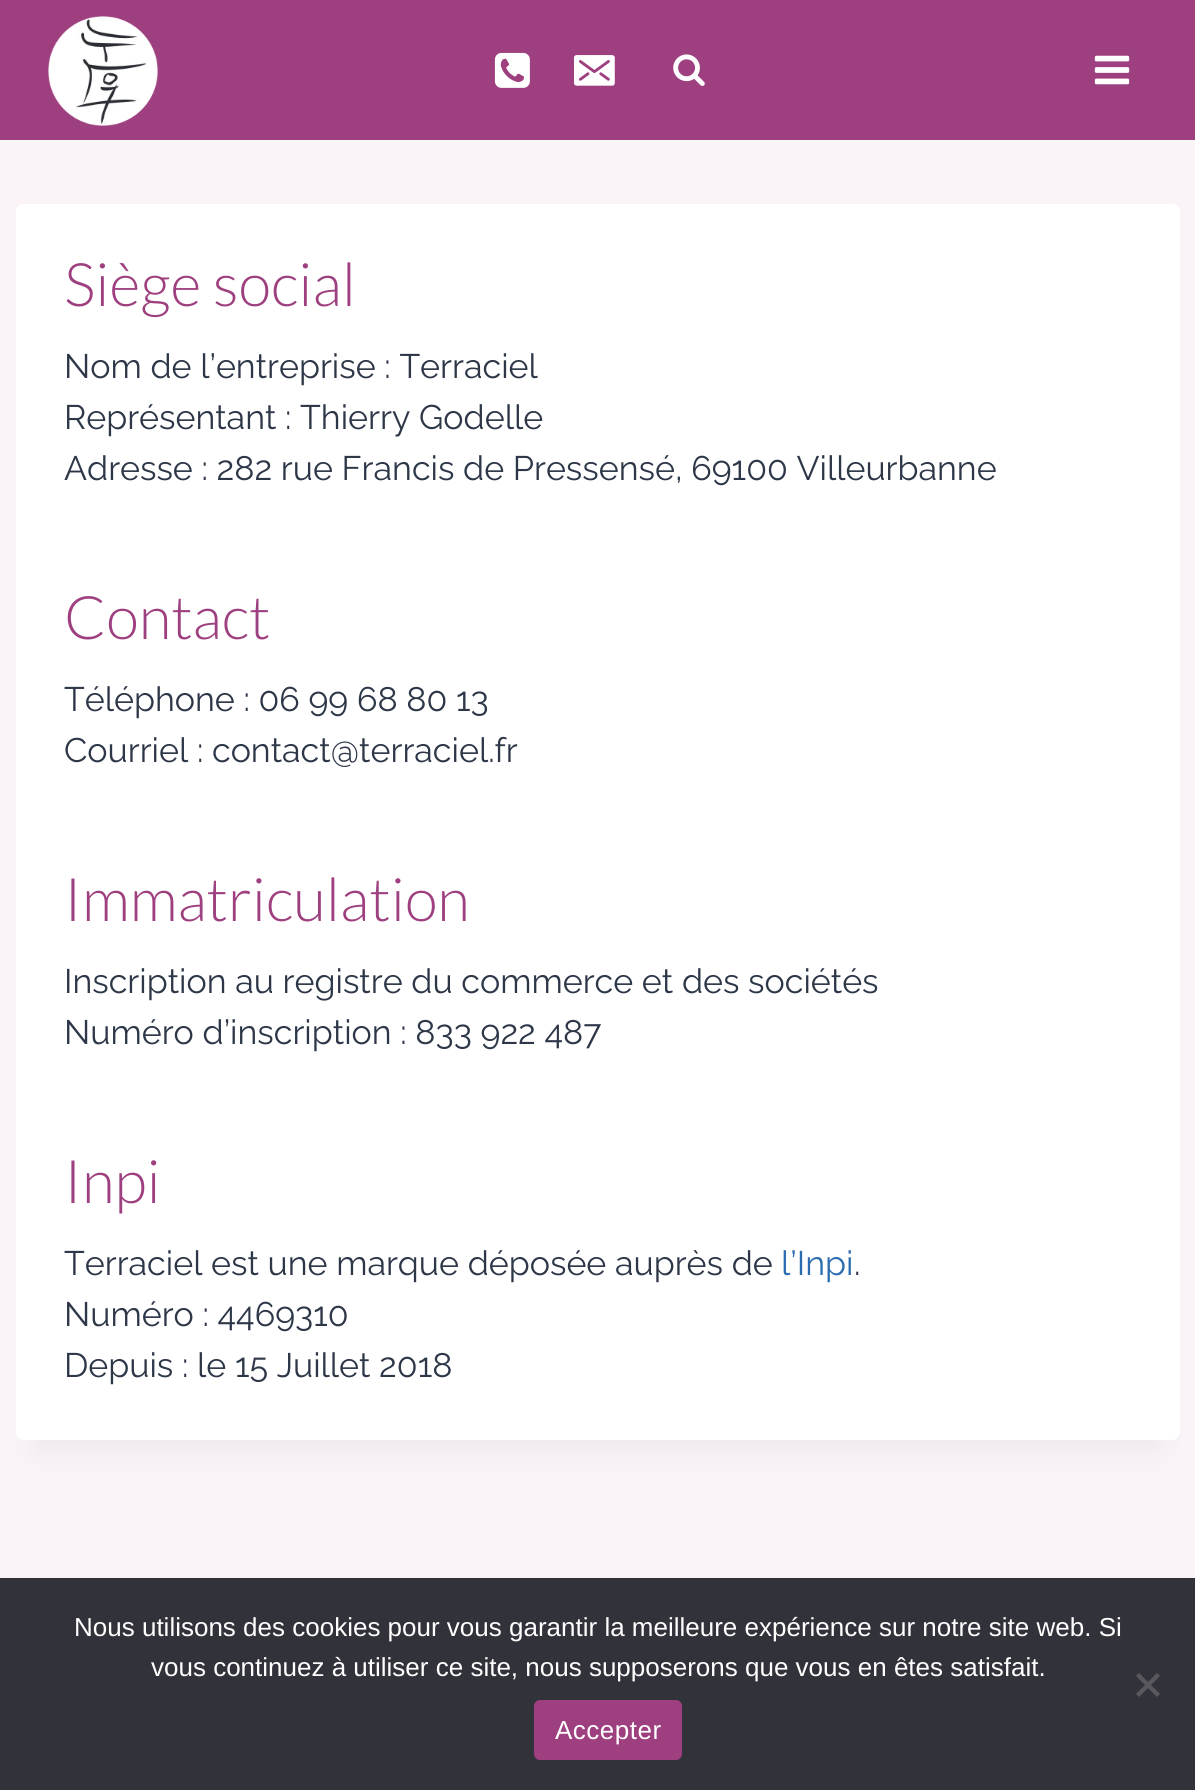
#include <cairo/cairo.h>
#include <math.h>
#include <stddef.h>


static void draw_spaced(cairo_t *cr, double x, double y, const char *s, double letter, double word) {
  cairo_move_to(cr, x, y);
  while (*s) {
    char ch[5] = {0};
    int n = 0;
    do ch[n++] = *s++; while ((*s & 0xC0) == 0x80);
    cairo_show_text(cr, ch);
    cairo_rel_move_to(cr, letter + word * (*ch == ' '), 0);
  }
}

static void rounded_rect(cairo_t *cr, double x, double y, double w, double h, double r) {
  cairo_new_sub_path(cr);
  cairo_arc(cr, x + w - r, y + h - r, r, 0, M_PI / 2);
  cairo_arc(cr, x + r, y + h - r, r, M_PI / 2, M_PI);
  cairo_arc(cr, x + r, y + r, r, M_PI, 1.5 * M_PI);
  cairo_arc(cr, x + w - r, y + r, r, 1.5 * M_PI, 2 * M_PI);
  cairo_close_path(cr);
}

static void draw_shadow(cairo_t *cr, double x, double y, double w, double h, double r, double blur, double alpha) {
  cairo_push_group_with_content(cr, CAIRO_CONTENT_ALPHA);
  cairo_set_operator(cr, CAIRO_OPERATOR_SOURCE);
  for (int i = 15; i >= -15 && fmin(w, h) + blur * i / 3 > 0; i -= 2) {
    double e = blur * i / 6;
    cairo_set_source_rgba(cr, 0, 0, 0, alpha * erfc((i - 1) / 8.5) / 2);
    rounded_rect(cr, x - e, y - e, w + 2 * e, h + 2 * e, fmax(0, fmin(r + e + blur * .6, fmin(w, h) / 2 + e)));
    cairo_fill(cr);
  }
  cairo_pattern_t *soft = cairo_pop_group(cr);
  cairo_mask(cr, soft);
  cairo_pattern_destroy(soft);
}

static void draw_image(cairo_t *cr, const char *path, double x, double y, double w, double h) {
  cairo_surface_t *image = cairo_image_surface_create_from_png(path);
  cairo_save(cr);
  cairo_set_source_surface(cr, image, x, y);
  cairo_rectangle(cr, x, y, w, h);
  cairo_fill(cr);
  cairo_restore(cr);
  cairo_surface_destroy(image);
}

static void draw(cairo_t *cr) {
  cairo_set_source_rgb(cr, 250 / 255.0, 244 / 255.0, 248 / 255.0);
  cairo_paint(cr);
  cairo_set_source_rgb(cr, 158 / 255.0, 64 / 255.0, 127 / 255.0);
  cairo_rectangle(cr, 0, 0, 1195, 140);
  cairo_fill(cr);
  draw_image(cr, "images/1.png", 48, 16, 110, 110);
  draw_image(cr, "images/2.png", 494, 52, 36, 36);
  draw_image(cr, "images/3.png", 574, 55, 41, 31);
  draw_image(cr, "images/4.png", 673, 54, 32, 32);
  draw_image(cr, "images/5.png", 1094, 55, 36, 30);
  cairo_set_source_rgb(cr, 0, 0, 0);
  draw_shadow(cr, 36, 254, 1124, 1196, 0, 15, 0.05);
  cairo_set_source_rgb(cr, 1, 1, 1);
  rounded_rect(cr, 16, 204, 1164, 1236, 8);
  cairo_fill(cr);
  cairo_set_source_rgb(cr, 50 / 255.0, 50 / 255.0, 58 / 255.0);
  cairo_rectangle(cr, 0, 1578, 1195, 212);
  cairo_fill(cr);
  cairo_set_source_rgb(cr, 89 / 255.0, 89 / 255.0, 93 / 255.0);
  cairo_new_path(cr);
  cairo_move_to(cr, 1157, 1673);
  cairo_line_to(cr, 1160, 1676);
  cairo_line_to(cr, 1139, 1697);
  cairo_line_to(cr, 1136, 1694);
  cairo_close_path(cr);
  cairo_fill(cr);
  cairo_new_path(cr);
  cairo_move_to(cr, 1136, 1676);
  cairo_line_to(cr, 1139, 1673);
  cairo_line_to(cr, 1160, 1694);
  cairo_line_to(cr, 1157, 1697);
  cairo_close_path(cr);
  cairo_fill(cr);
  cairo_set_source_rgb(cr, 158 / 255.0, 64 / 255.0, 127 / 255.0);
  rounded_rect(cr, 534, 1700, 148, 60, 6);
  cairo_fill(cr);
  cairo_select_font_face(cr, "Lato Light", CAIRO_FONT_SLANT_NORMAL, CAIRO_FONT_WEIGHT_NORMAL);
  cairo_set_font_size(cr, 60);
  cairo_move_to(cr, 64, 306);
  cairo_show_text(cr, "Siège social");
  cairo_select_font_face(cr, "Raleway", CAIRO_FONT_SLANT_NORMAL, CAIRO_FONT_WEIGHT_NORMAL);
  cairo_set_font_size(cr, 34);
  cairo_set_source_rgb(cr, 45 / 255.0, 55 / 255.0, 72 / 255.0);
  cairo_move_to(cr, 64, 378);
  cairo_show_text(cr, "Nom de l’entreprise : Terraciel");
  cairo_move_to(cr, 64, 429);
  cairo_show_text(cr, "Représentant : Thierry Godelle");
  cairo_move_to(cr, 64, 480);
  cairo_show_text(cr, "Adresse : 282 rue Francis de Pressensé, 69100 Villeurbanne");
  cairo_select_font_face(cr, "Lato Light", CAIRO_FONT_SLANT_NORMAL, CAIRO_FONT_WEIGHT_NORMAL);
  cairo_set_font_size(cr, 60);
  cairo_set_source_rgb(cr, 158 / 255.0, 64 / 255.0, 127 / 255.0);
  cairo_move_to(cr, 64, 639);
  cairo_show_text(cr, "Contact");
  cairo_select_font_face(cr, "Raleway", CAIRO_FONT_SLANT_NORMAL, CAIRO_FONT_WEIGHT_NORMAL);
  cairo_set_font_size(cr, 34);
  cairo_set_source_rgb(cr, 45 / 255.0, 55 / 255.0, 72 / 255.0);
  cairo_move_to(cr, 64, 711);
  cairo_show_text(cr, "Téléphone : 06 99 68 80 13");
  cairo_move_to(cr, 64, 762);
  cairo_show_text(cr, "Courriel : contact@terraciel.fr");
  cairo_select_font_face(cr, "Lato Light", CAIRO_FONT_SLANT_NORMAL, CAIRO_FONT_WEIGHT_NORMAL);
  cairo_set_font_size(cr, 60);
  cairo_set_source_rgb(cr, 158 / 255.0, 64 / 255.0, 127 / 255.0);
  cairo_move_to(cr, 64, 921);
  cairo_show_text(cr, "Immatriculation");
  cairo_select_font_face(cr, "Raleway", CAIRO_FONT_SLANT_NORMAL, CAIRO_FONT_WEIGHT_NORMAL);
  cairo_set_font_size(cr, 34);
  cairo_set_source_rgb(cr, 45 / 255.0, 55 / 255.0, 72 / 255.0);
  cairo_move_to(cr, 64, 993);
  cairo_show_text(cr, "Inscription au registre du commerce et des sociétés");
  cairo_move_to(cr, 64, 1044);
  cairo_show_text(cr, "Numéro d’inscription : 833 922 487");
  cairo_select_font_face(cr, "Lato Light", CAIRO_FONT_SLANT_NORMAL, CAIRO_FONT_WEIGHT_NORMAL);
  cairo_set_font_size(cr, 60);
  cairo_set_source_rgb(cr, 158 / 255.0, 64 / 255.0, 127 / 255.0);
  cairo_move_to(cr, 64, 1203);
  cairo_show_text(cr, "Inpi");
  cairo_select_font_face(cr, "Raleway", CAIRO_FONT_SLANT_NORMAL, CAIRO_FONT_WEIGHT_NORMAL);
  cairo_set_font_size(cr, 34);
  cairo_set_source_rgb(cr, 45 / 255.0, 55 / 255.0, 72 / 255.0);
  cairo_move_to(cr, 64, 1275);
  cairo_show_text(cr, "Terraciel est une marque déposée auprès de");
  cairo_set_source_rgb(cr, 43 / 255.0, 108 / 255.0, 176 / 255.0);
  cairo_move_to(cr, 781, 1275);
  cairo_show_text(cr, "l’Inpi");
  cairo_set_source_rgb(cr, 45 / 255.0, 55 / 255.0, 72 / 255.0);
  cairo_move_to(cr, 854, 1275);
  cairo_show_text(cr, ".");
  cairo_move_to(cr, 64, 1326);
  cairo_show_text(cr, "Numéro : 4469310");
  cairo_move_to(cr, 64, 1377);
  cairo_show_text(cr, "Depuis : le 15 Juillet 2018");
  cairo_select_font_face(cr, "Liberation Sans", CAIRO_FONT_SLANT_NORMAL, CAIRO_FONT_WEIGHT_NORMAL);
  cairo_set_font_size(cr, 26);
  cairo_set_source_rgb(cr, 1, 1, 1);
  cairo_move_to(cr, 74, 1636);
  cairo_show_text(cr, "Nous utilisons des cookies pour vous garantir la meilleure expérience sur notre site web. Si");
  cairo_move_to(cr, 151, 1676);
  cairo_show_text(cr, "vous continuez à utiliser ce site, nous supposerons que vous en êtes satisfait.");
  draw_spaced(cr, 555, 1739, "Accepter", 0.5, 0);
}

int main(void) {
  cairo_surface_t *surface = cairo_image_surface_create(CAIRO_FORMAT_RGB24, 1195, 1790);
  cairo_t *cr = cairo_create(surface);
  cairo_font_options_t *options = cairo_font_options_create();
  cairo_font_options_set_hint_metrics(options, CAIRO_HINT_METRICS_OFF);
  cairo_font_options_set_hint_style(options, CAIRO_HINT_STYLE_NONE);
  cairo_set_font_options(cr, options);
  cairo_set_miter_limit(cr, 4);
  draw(cr);
  cairo_surface_write_to_png(surface, "out.png");
  cairo_font_options_destroy(options);
  cairo_destroy(cr);
  cairo_surface_destroy(surface);
  return 0;
}
